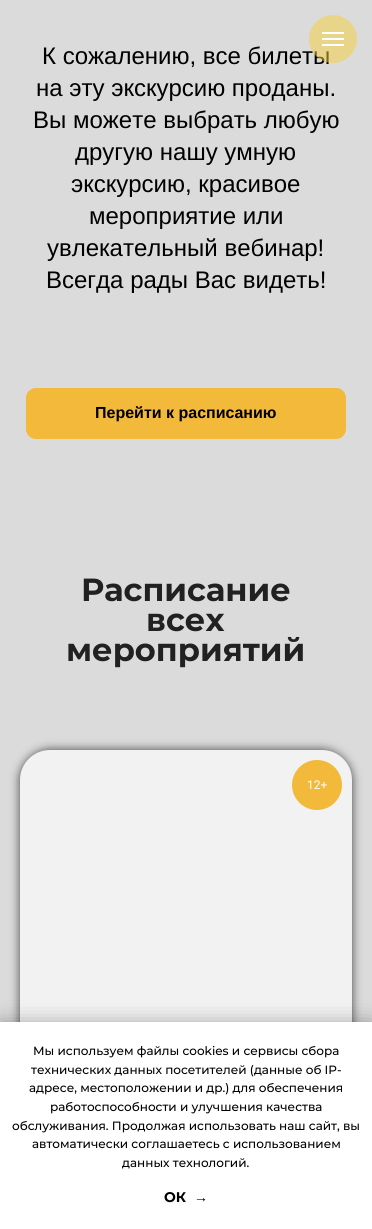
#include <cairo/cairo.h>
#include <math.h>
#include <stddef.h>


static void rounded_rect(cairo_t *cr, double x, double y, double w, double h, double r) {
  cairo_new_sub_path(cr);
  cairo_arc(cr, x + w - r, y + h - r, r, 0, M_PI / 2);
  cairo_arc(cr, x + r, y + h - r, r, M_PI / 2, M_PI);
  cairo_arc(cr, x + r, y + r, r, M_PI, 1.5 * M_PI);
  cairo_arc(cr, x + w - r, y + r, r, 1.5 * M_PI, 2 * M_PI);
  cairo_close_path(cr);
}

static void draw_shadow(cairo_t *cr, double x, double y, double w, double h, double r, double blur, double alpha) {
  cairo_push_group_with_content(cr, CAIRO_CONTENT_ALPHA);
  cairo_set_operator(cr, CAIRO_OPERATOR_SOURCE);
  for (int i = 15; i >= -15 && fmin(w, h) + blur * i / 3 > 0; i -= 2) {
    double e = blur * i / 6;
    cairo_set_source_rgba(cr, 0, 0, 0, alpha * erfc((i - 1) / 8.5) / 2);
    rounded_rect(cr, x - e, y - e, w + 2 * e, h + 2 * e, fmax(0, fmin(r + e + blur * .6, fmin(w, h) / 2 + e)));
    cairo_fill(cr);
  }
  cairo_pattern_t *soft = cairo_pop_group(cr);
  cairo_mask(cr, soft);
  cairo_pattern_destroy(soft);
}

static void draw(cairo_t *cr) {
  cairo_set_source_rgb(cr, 219 / 255.0, 219 / 255.0, 219 / 255.0);
  cairo_paint(cr);
  cairo_set_source_rgb(cr, 242 / 255.0, 185 / 255.0, 59 / 255.0);
  rounded_rect(cr, 26, 388, 320, 51, 10);
  cairo_fill(cr);
  cairo_set_source_rgb(cr, 0, 0, 0);
  draw_shadow(cr, 20, 750, 332, 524, 30, 5, 0.7);
  cairo_set_source_rgb(cr, 242 / 255.0, 242 / 255.0, 242 / 255.0);
  rounded_rect(cr, 20, 750, 332, 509, 30);
  cairo_fill(cr);
  cairo_set_source_rgb(cr, 242 / 255.0, 185 / 255.0, 59 / 255.0);
  cairo_arc(cr, 317, 785, 25, 0, 2 * M_PI);
  cairo_fill(cr);
  cairo_set_source_rgb(cr, 0, 0, 0);
  draw_shadow(cr, 0, 1022, 372, 207, 0, 10, 0.3);
  cairo_set_source_rgb(cr, 1, 1, 1);
  cairo_rectangle(cr, 0, 1022, 372, 207);
  cairo_fill(cr);
  cairo_select_font_face(cr, "Liberation Sans", CAIRO_FONT_SLANT_NORMAL, CAIRO_FONT_WEIGHT_NORMAL);
  cairo_set_font_size(cr, 24);
  cairo_set_source_rgb(cr, 0, 0, 0);
  cairo_move_to(cr, 42, 64);
  cairo_show_text(cr, "К сожалению, все билеты");
  cairo_set_source_rgba(cr, 249 / 255.0, 209 / 255.0, 57 / 255.0, 0.5);
  cairo_new_path(cr);
  cairo_arc(cr, 333, 39, 24, 0, 2 * M_PI);
  cairo_fill(cr);
  cairo_set_source_rgb(cr, 1, 1, 1);
  cairo_rectangle(cr, 322, 44, 22, 2);
  cairo_fill(cr);
  cairo_rectangle(cr, 322, 38, 22, 2);
  cairo_fill(cr);
  cairo_rectangle(cr, 322, 32, 22, 2);
  cairo_fill(cr);
  cairo_set_source_rgb(cr, 0, 0, 0);
  cairo_move_to(cr, 36, 96);
  cairo_show_text(cr, "на эту экскурсию проданы.");
  cairo_move_to(cr, 33, 128);
  cairo_show_text(cr, "Вы можете выбрать любую");
  cairo_move_to(cr, 75, 160);
  cairo_show_text(cr, "другую нашу умную");
  cairo_move_to(cr, 71, 192);
  cairo_show_text(cr, "экскурсию, красивое");
  cairo_move_to(cr, 89, 224);
  cairo_show_text(cr, "мероприятие или");
  cairo_move_to(cr, 47, 256);
  cairo_show_text(cr, "увлекательный вебинар!");
  cairo_move_to(cr, 46, 288);
  cairo_show_text(cr, "Всегда рады Вас видеть!");
  cairo_select_font_face(cr, "Liberation Sans", CAIRO_FONT_SLANT_NORMAL, CAIRO_FONT_WEIGHT_BOLD);
  cairo_set_font_size(cr, 16);
  cairo_move_to(cr, 95, 418);
  cairo_show_text(cr, "Перейти к расписанию");
  cairo_select_font_face(cr, "Montserrat", CAIRO_FONT_SLANT_NORMAL, CAIRO_FONT_WEIGHT_BOLD);
  cairo_set_font_size(cr, 32);
  cairo_set_source_rgb(cr, 33 / 255.0, 33 / 255.0, 33 / 255.0);
  cairo_move_to(cr, 81, 601);
  cairo_show_text(cr, "Расписание");
  cairo_move_to(cr, 146, 631);
  cairo_show_text(cr, "всех");
  cairo_move_to(cr, 66, 661);
  cairo_show_text(cr, "мероприятий");
  cairo_select_font_face(cr, "Roboto", CAIRO_FONT_SLANT_NORMAL, CAIRO_FONT_WEIGHT_NORMAL);
  cairo_set_font_size(cr, 12);
  cairo_set_source_rgb(cr, 1, 1, 1);
  cairo_move_to(cr, 307, 789);
  cairo_show_text(cr, "12+");
  cairo_select_font_face(cr, "Montserrat Medium", CAIRO_FONT_SLANT_NORMAL, CAIRO_FONT_WEIGHT_NORMAL);
  cairo_set_source_rgb(cr, 0, 0, 0);
  cairo_move_to(cr, 33, 1055);
  cairo_show_text(cr, "Мы используем файлы cookies и сервисы сбора");
  cairo_move_to(cr, 31, 1074);
  cairo_show_text(cr, "технических данных посетителей (данные об IP-");
  cairo_move_to(cr, 29, 1092);
  cairo_show_text(cr, "адресе, местоположении и др.) для обеспечения");
  cairo_move_to(cr, 50, 1111);
  cairo_show_text(cr, "работоспособности и улучшения качества");
  cairo_move_to(cr, 12, 1130);
  cairo_show_text(cr, "обслуживания. Продолжая использовать наш сайт, вы");
  cairo_move_to(cr, 32, 1148);
  cairo_show_text(cr, "автоматически соглашаетесь с использованием");
  cairo_move_to(cr, 122, 1167);
  cairo_show_text(cr, "данных технологий.");
  cairo_select_font_face(cr, "Montserrat", CAIRO_FONT_SLANT_NORMAL, CAIRO_FONT_WEIGHT_BOLD);
  cairo_set_font_size(cr, 14);
  cairo_move_to(cr, 164, 1202);
  cairo_show_text(cr, "ОК");
  cairo_select_font_face(cr, "Liberation Sans", CAIRO_FONT_SLANT_NORMAL, CAIRO_FONT_WEIGHT_BOLD);
  cairo_move_to(cr, 194, 1202);
  cairo_show_text(cr, "→");
}

int main(void) {
  cairo_surface_t *surface = cairo_image_surface_create(CAIRO_FORMAT_RGB24, 372, 1229);
  cairo_t *cr = cairo_create(surface);
  cairo_font_options_t *options = cairo_font_options_create();
  cairo_font_options_set_hint_metrics(options, CAIRO_HINT_METRICS_OFF);
  cairo_font_options_set_hint_style(options, CAIRO_HINT_STYLE_NONE);
  cairo_set_font_options(cr, options);
  cairo_set_miter_limit(cr, 4);
  draw(cr);
  cairo_surface_write_to_png(surface, "out.png");
  cairo_font_options_destroy(options);
  cairo_destroy(cr);
  cairo_surface_destroy(surface);
  return 0;
}
